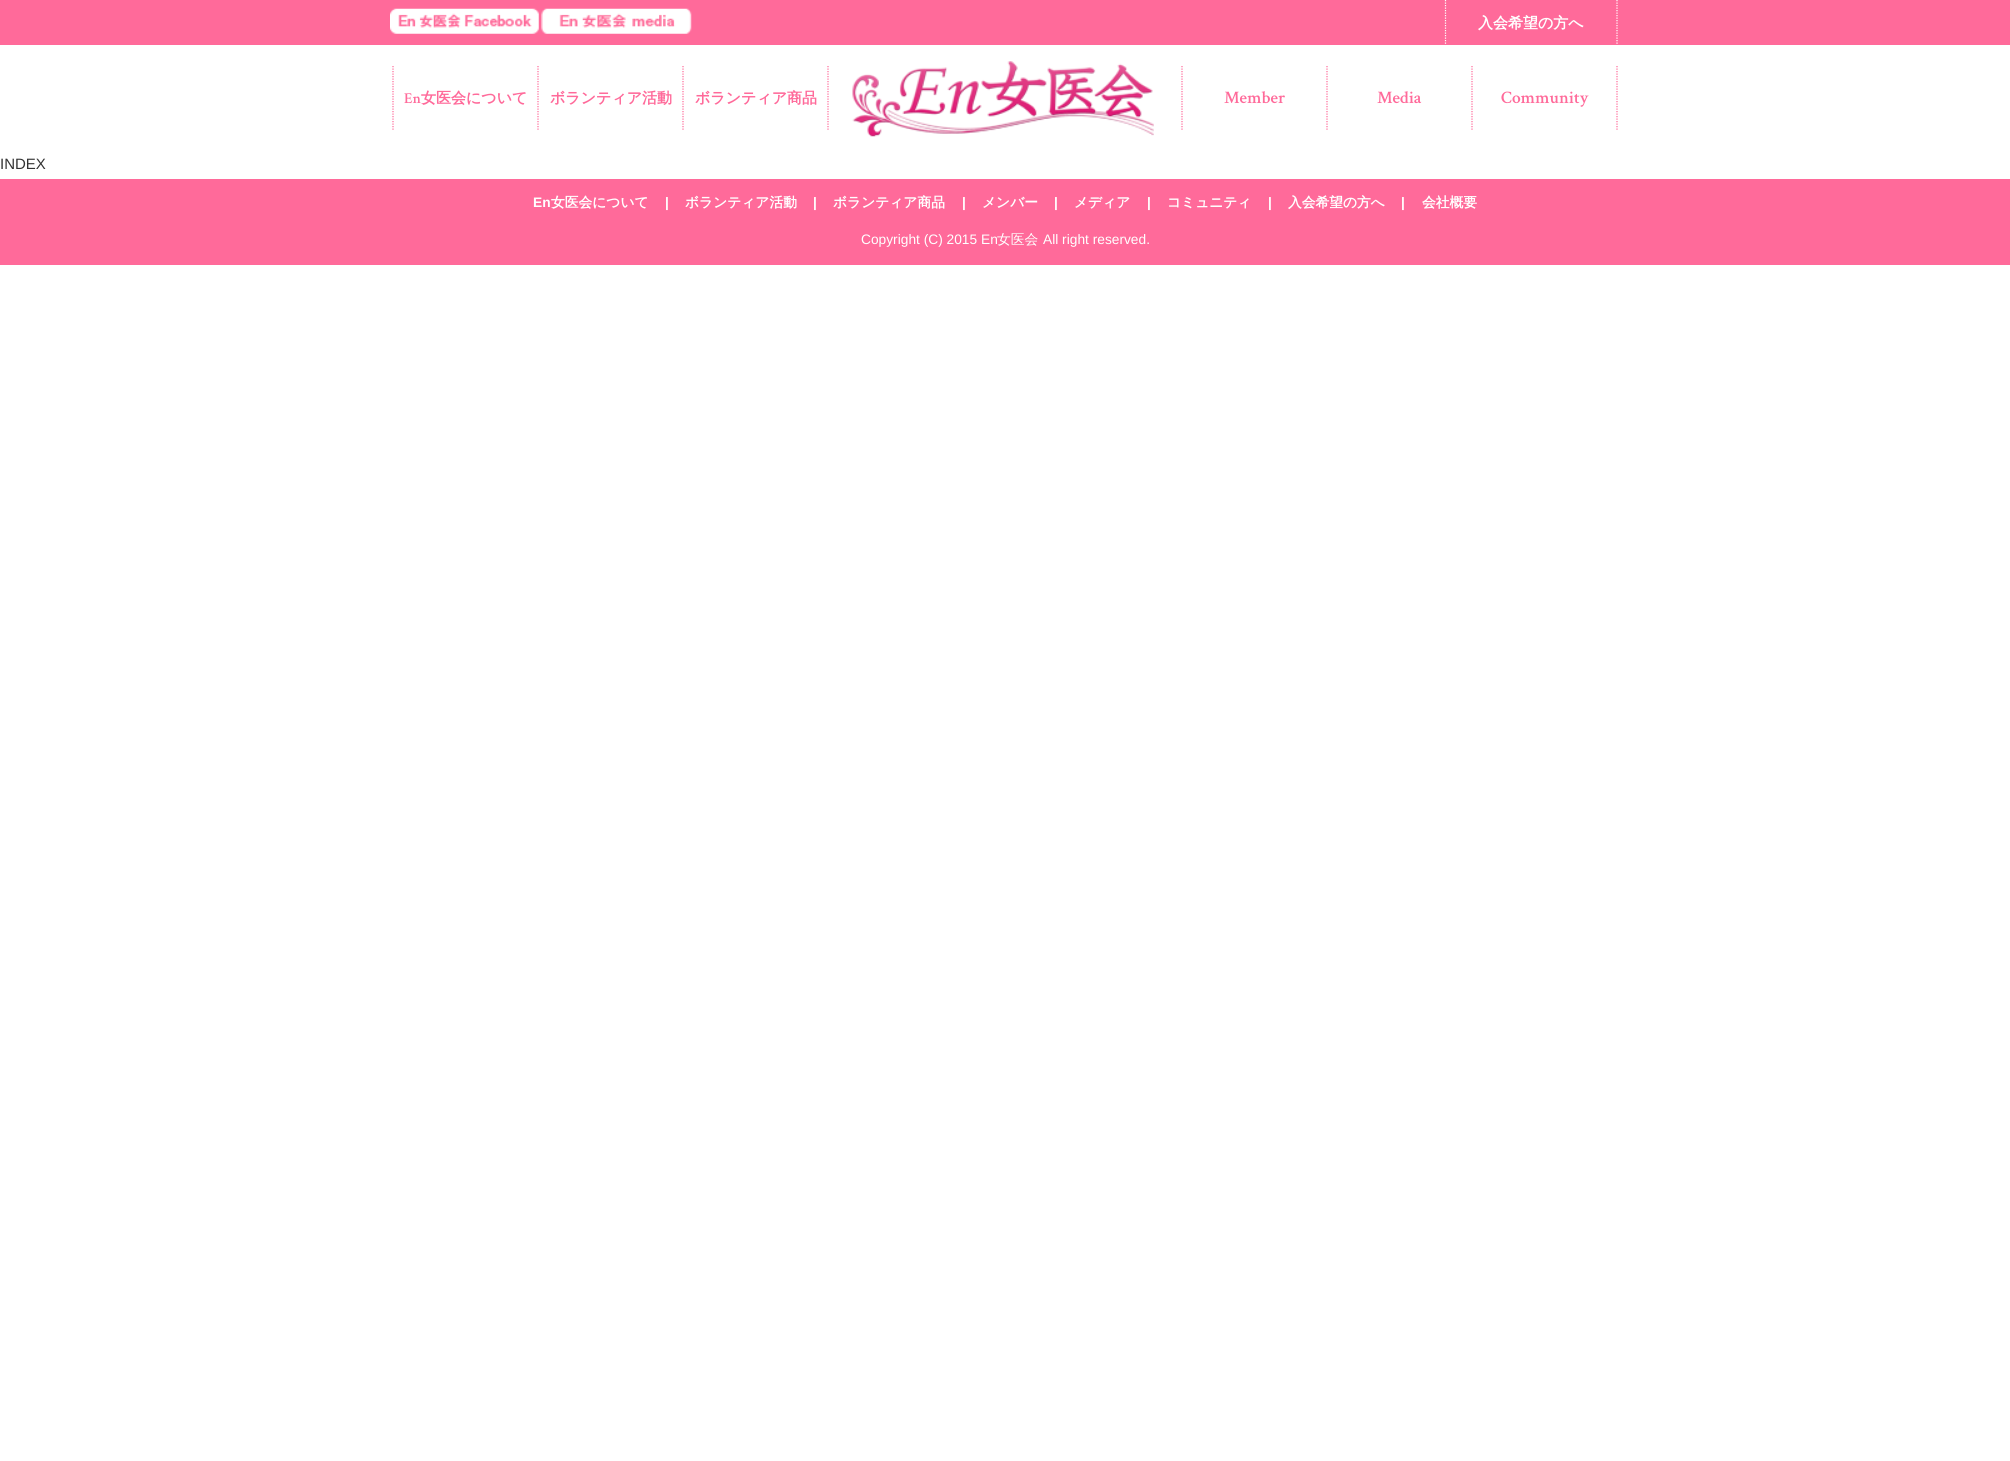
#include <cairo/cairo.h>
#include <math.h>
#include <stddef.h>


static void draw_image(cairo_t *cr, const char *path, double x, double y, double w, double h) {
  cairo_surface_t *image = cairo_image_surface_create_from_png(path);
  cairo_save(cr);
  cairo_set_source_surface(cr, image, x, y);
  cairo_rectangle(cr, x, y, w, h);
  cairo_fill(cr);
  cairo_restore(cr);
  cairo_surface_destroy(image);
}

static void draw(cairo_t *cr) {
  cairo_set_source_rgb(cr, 1, 1, 1);
  cairo_paint(cr);
  cairo_set_source_rgb(cr, 1, 106 / 255.0, 154 / 255.0);
  cairo_rectangle(cr, 0, 0, 2010, 45);
  cairo_fill(cr);
  draw_image(cr, "images/1.png", 390, 8, 149, 26);
  draw_image(cr, "images/2.png", 541, 8, 151, 26);
  cairo_new_path(cr);
  cairo_move_to(cr, 1617, 0);
  cairo_line_to(cr, 1617, 45);
  cairo_set_source_rgb(cr, 1, 1, 1);
  cairo_set_line_width(cr, 1.2);
  cairo_set_dash(cr, (double[]){1.25, 1.25}, 2, 0);
  cairo_stroke(cr);
  cairo_new_path(cr);
  cairo_move_to(cr, 1445.5, 0);
  cairo_line_to(cr, 1445.5, 45);
  cairo_stroke(cr);
  draw_image(cr, "images/3.png", 852, 61, 302, 76);
  cairo_new_path(cr);
  cairo_move_to(cr, 538, 66);
  cairo_line_to(cr, 538, 130);
  cairo_set_source_rgb(cr, 1, 106 / 255.0, 154 / 255.0);
  cairo_stroke(cr);
  cairo_new_path(cr);
  cairo_move_to(cr, 393, 66);
  cairo_line_to(cr, 393, 130);
  cairo_stroke(cr);
  cairo_new_path(cr);
  cairo_move_to(cr, 683, 66);
  cairo_line_to(cr, 683, 130);
  cairo_stroke(cr);
  cairo_new_path(cr);
  cairo_move_to(cr, 828, 66);
  cairo_line_to(cr, 828, 130);
  cairo_stroke(cr);
  cairo_new_path(cr);
  cairo_move_to(cr, 1327, 66);
  cairo_line_to(cr, 1327, 130);
  cairo_stroke(cr);
  cairo_new_path(cr);
  cairo_move_to(cr, 1182, 66);
  cairo_line_to(cr, 1182, 130);
  cairo_stroke(cr);
  cairo_new_path(cr);
  cairo_move_to(cr, 1472, 66);
  cairo_line_to(cr, 1472, 130);
  cairo_stroke(cr);
  cairo_new_path(cr);
  cairo_move_to(cr, 1617, 66);
  cairo_line_to(cr, 1617, 130);
  cairo_stroke(cr);
  cairo_rectangle(cr, 0, 179, 2010, 86);
  cairo_fill(cr);
  cairo_select_font_face(cr, "WenQuanYi Zen Hei", CAIRO_FONT_SLANT_NORMAL, CAIRO_FONT_WEIGHT_BOLD);
  cairo_set_font_size(cr, 15);
  cairo_set_source_rgb(cr, 1, 1, 1);
  cairo_move_to(cr, 1478, 28);
  cairo_show_text(cr, "入会希望の方へ");
  cairo_select_font_face(cr, "Crimson Text SemiBold", CAIRO_FONT_SLANT_NORMAL, CAIRO_FONT_WEIGHT_NORMAL);
  cairo_set_source_rgb(cr, 1, 106 / 255.0, 154 / 255.0);
  cairo_move_to(cr, 404, 103);
  cairo_show_text(cr, "En");
  cairo_select_font_face(cr, "WenQuanYi Zen Hei", CAIRO_FONT_SLANT_NORMAL, CAIRO_FONT_WEIGHT_BOLD);
  cairo_move_to(cr, 421, 103);
  cairo_show_text(cr, "女医会について");
  cairo_move_to(cr, 550, 103);
  cairo_show_text(cr, "ボランティア活動");
  cairo_move_to(cr, 695, 103);
  cairo_show_text(cr, "ボランティア商品");
  cairo_select_font_face(cr, "Crimson Text SemiBold", CAIRO_FONT_SLANT_NORMAL, CAIRO_FONT_WEIGHT_NORMAL);
  cairo_set_font_size(cr, 17.5);
  cairo_move_to(cr, 1224, 103);
  cairo_show_text(cr, "Member");
  cairo_move_to(cr, 1377, 103);
  cairo_show_text(cr, "Media");
  cairo_move_to(cr, 1501, 103);
  cairo_show_text(cr, "Community");
  cairo_select_font_face(cr, "Liberation Sans", CAIRO_FONT_SLANT_NORMAL, CAIRO_FONT_WEIGHT_NORMAL);
  cairo_set_font_size(cr, 15);
  cairo_set_source_rgb(cr, 51 / 255.0, 51 / 255.0, 51 / 255.0);
  cairo_move_to(cr, 0, 169);
  cairo_show_text(cr, "INDEX");
  cairo_select_font_face(cr, "Liberation Sans", CAIRO_FONT_SLANT_NORMAL, CAIRO_FONT_WEIGHT_BOLD);
  cairo_set_font_size(cr, 13.75);
  cairo_set_source_rgb(cr, 1, 1, 1);
  cairo_move_to(cr, 533, 207);
  cairo_show_text(cr, "En");
  cairo_select_font_face(cr, "WenQuanYi Zen Hei", CAIRO_FONT_SLANT_NORMAL, CAIRO_FONT_WEIGHT_BOLD);
  cairo_move_to(cr, 551, 207);
  cairo_show_text(cr, "女医会について");
  cairo_select_font_face(cr, "Liberation Sans", CAIRO_FONT_SLANT_NORMAL, CAIRO_FONT_WEIGHT_BOLD);
  cairo_move_to(cr, 665, 207);
  cairo_show_text(cr, "|");
  cairo_select_font_face(cr, "WenQuanYi Zen Hei", CAIRO_FONT_SLANT_NORMAL, CAIRO_FONT_WEIGHT_BOLD);
  cairo_move_to(cr, 685, 207);
  cairo_show_text(cr, "ボランティア活動");
  cairo_select_font_face(cr, "Liberation Sans", CAIRO_FONT_SLANT_NORMAL, CAIRO_FONT_WEIGHT_BOLD);
  cairo_move_to(cr, 813, 207);
  cairo_show_text(cr, "|");
  cairo_select_font_face(cr, "WenQuanYi Zen Hei", CAIRO_FONT_SLANT_NORMAL, CAIRO_FONT_WEIGHT_BOLD);
  cairo_move_to(cr, 833, 207);
  cairo_show_text(cr, "ボランティア商品");
  cairo_select_font_face(cr, "Liberation Sans", CAIRO_FONT_SLANT_NORMAL, CAIRO_FONT_WEIGHT_BOLD);
  cairo_move_to(cr, 962, 207);
  cairo_show_text(cr, "|");
  cairo_select_font_face(cr, "WenQuanYi Zen Hei", CAIRO_FONT_SLANT_NORMAL, CAIRO_FONT_WEIGHT_BOLD);
  cairo_move_to(cr, 982, 207);
  cairo_show_text(cr, "メンバー");
  cairo_select_font_face(cr, "Liberation Sans", CAIRO_FONT_SLANT_NORMAL, CAIRO_FONT_WEIGHT_BOLD);
  cairo_move_to(cr, 1054, 207);
  cairo_show_text(cr, "|");
  cairo_select_font_face(cr, "WenQuanYi Zen Hei", CAIRO_FONT_SLANT_NORMAL, CAIRO_FONT_WEIGHT_BOLD);
  cairo_move_to(cr, 1074, 207);
  cairo_show_text(cr, "メディア");
  cairo_select_font_face(cr, "Liberation Sans", CAIRO_FONT_SLANT_NORMAL, CAIRO_FONT_WEIGHT_BOLD);
  cairo_move_to(cr, 1147, 207);
  cairo_show_text(cr, "|");
  cairo_select_font_face(cr, "WenQuanYi Zen Hei", CAIRO_FONT_SLANT_NORMAL, CAIRO_FONT_WEIGHT_BOLD);
  cairo_move_to(cr, 1167, 207);
  cairo_show_text(cr, "コミュニティ");
  cairo_select_font_face(cr, "Liberation Sans", CAIRO_FONT_SLANT_NORMAL, CAIRO_FONT_WEIGHT_BOLD);
  cairo_move_to(cr, 1268, 207);
  cairo_show_text(cr, "|");
  cairo_select_font_face(cr, "WenQuanYi Zen Hei", CAIRO_FONT_SLANT_NORMAL, CAIRO_FONT_WEIGHT_BOLD);
  cairo_move_to(cr, 1288, 207);
  cairo_show_text(cr, "入会希望の方へ");
  cairo_select_font_face(cr, "Liberation Sans", CAIRO_FONT_SLANT_NORMAL, CAIRO_FONT_WEIGHT_BOLD);
  cairo_move_to(cr, 1401, 207);
  cairo_show_text(cr, "|");
  cairo_select_font_face(cr, "WenQuanYi Zen Hei", CAIRO_FONT_SLANT_NORMAL, CAIRO_FONT_WEIGHT_BOLD);
  cairo_move_to(cr, 1422, 207);
  cairo_show_text(cr, "会社概要");
  cairo_select_font_face(cr, "Liberation Sans", CAIRO_FONT_SLANT_NORMAL, CAIRO_FONT_WEIGHT_NORMAL);
  cairo_move_to(cr, 861, 244);
  cairo_show_text(cr, "Copyright (C) 2015 En");
  cairo_select_font_face(cr, "WenQuanYi Zen Hei Medium", CAIRO_FONT_SLANT_NORMAL, CAIRO_FONT_WEIGHT_NORMAL);
  cairo_move_to(cr, 997, 244);
  cairo_show_text(cr, "女医会");
  cairo_select_font_face(cr, "Liberation Sans", CAIRO_FONT_SLANT_NORMAL, CAIRO_FONT_WEIGHT_NORMAL);
  cairo_move_to(cr, 1043, 244);
  cairo_show_text(cr, "All right reserved.");
}

int main(void) {
  cairo_surface_t *surface = cairo_image_surface_create(CAIRO_FORMAT_RGB24, 2010, 1461);
  cairo_t *cr = cairo_create(surface);
  cairo_font_options_t *options = cairo_font_options_create();
  cairo_font_options_set_hint_metrics(options, CAIRO_HINT_METRICS_OFF);
  cairo_font_options_set_hint_style(options, CAIRO_HINT_STYLE_NONE);
  cairo_set_font_options(cr, options);
  cairo_set_miter_limit(cr, 4);
  draw(cr);
  cairo_surface_write_to_png(surface, "out.png");
  cairo_font_options_destroy(options);
  cairo_destroy(cr);
  cairo_surface_destroy(surface);
  return 0;
}
